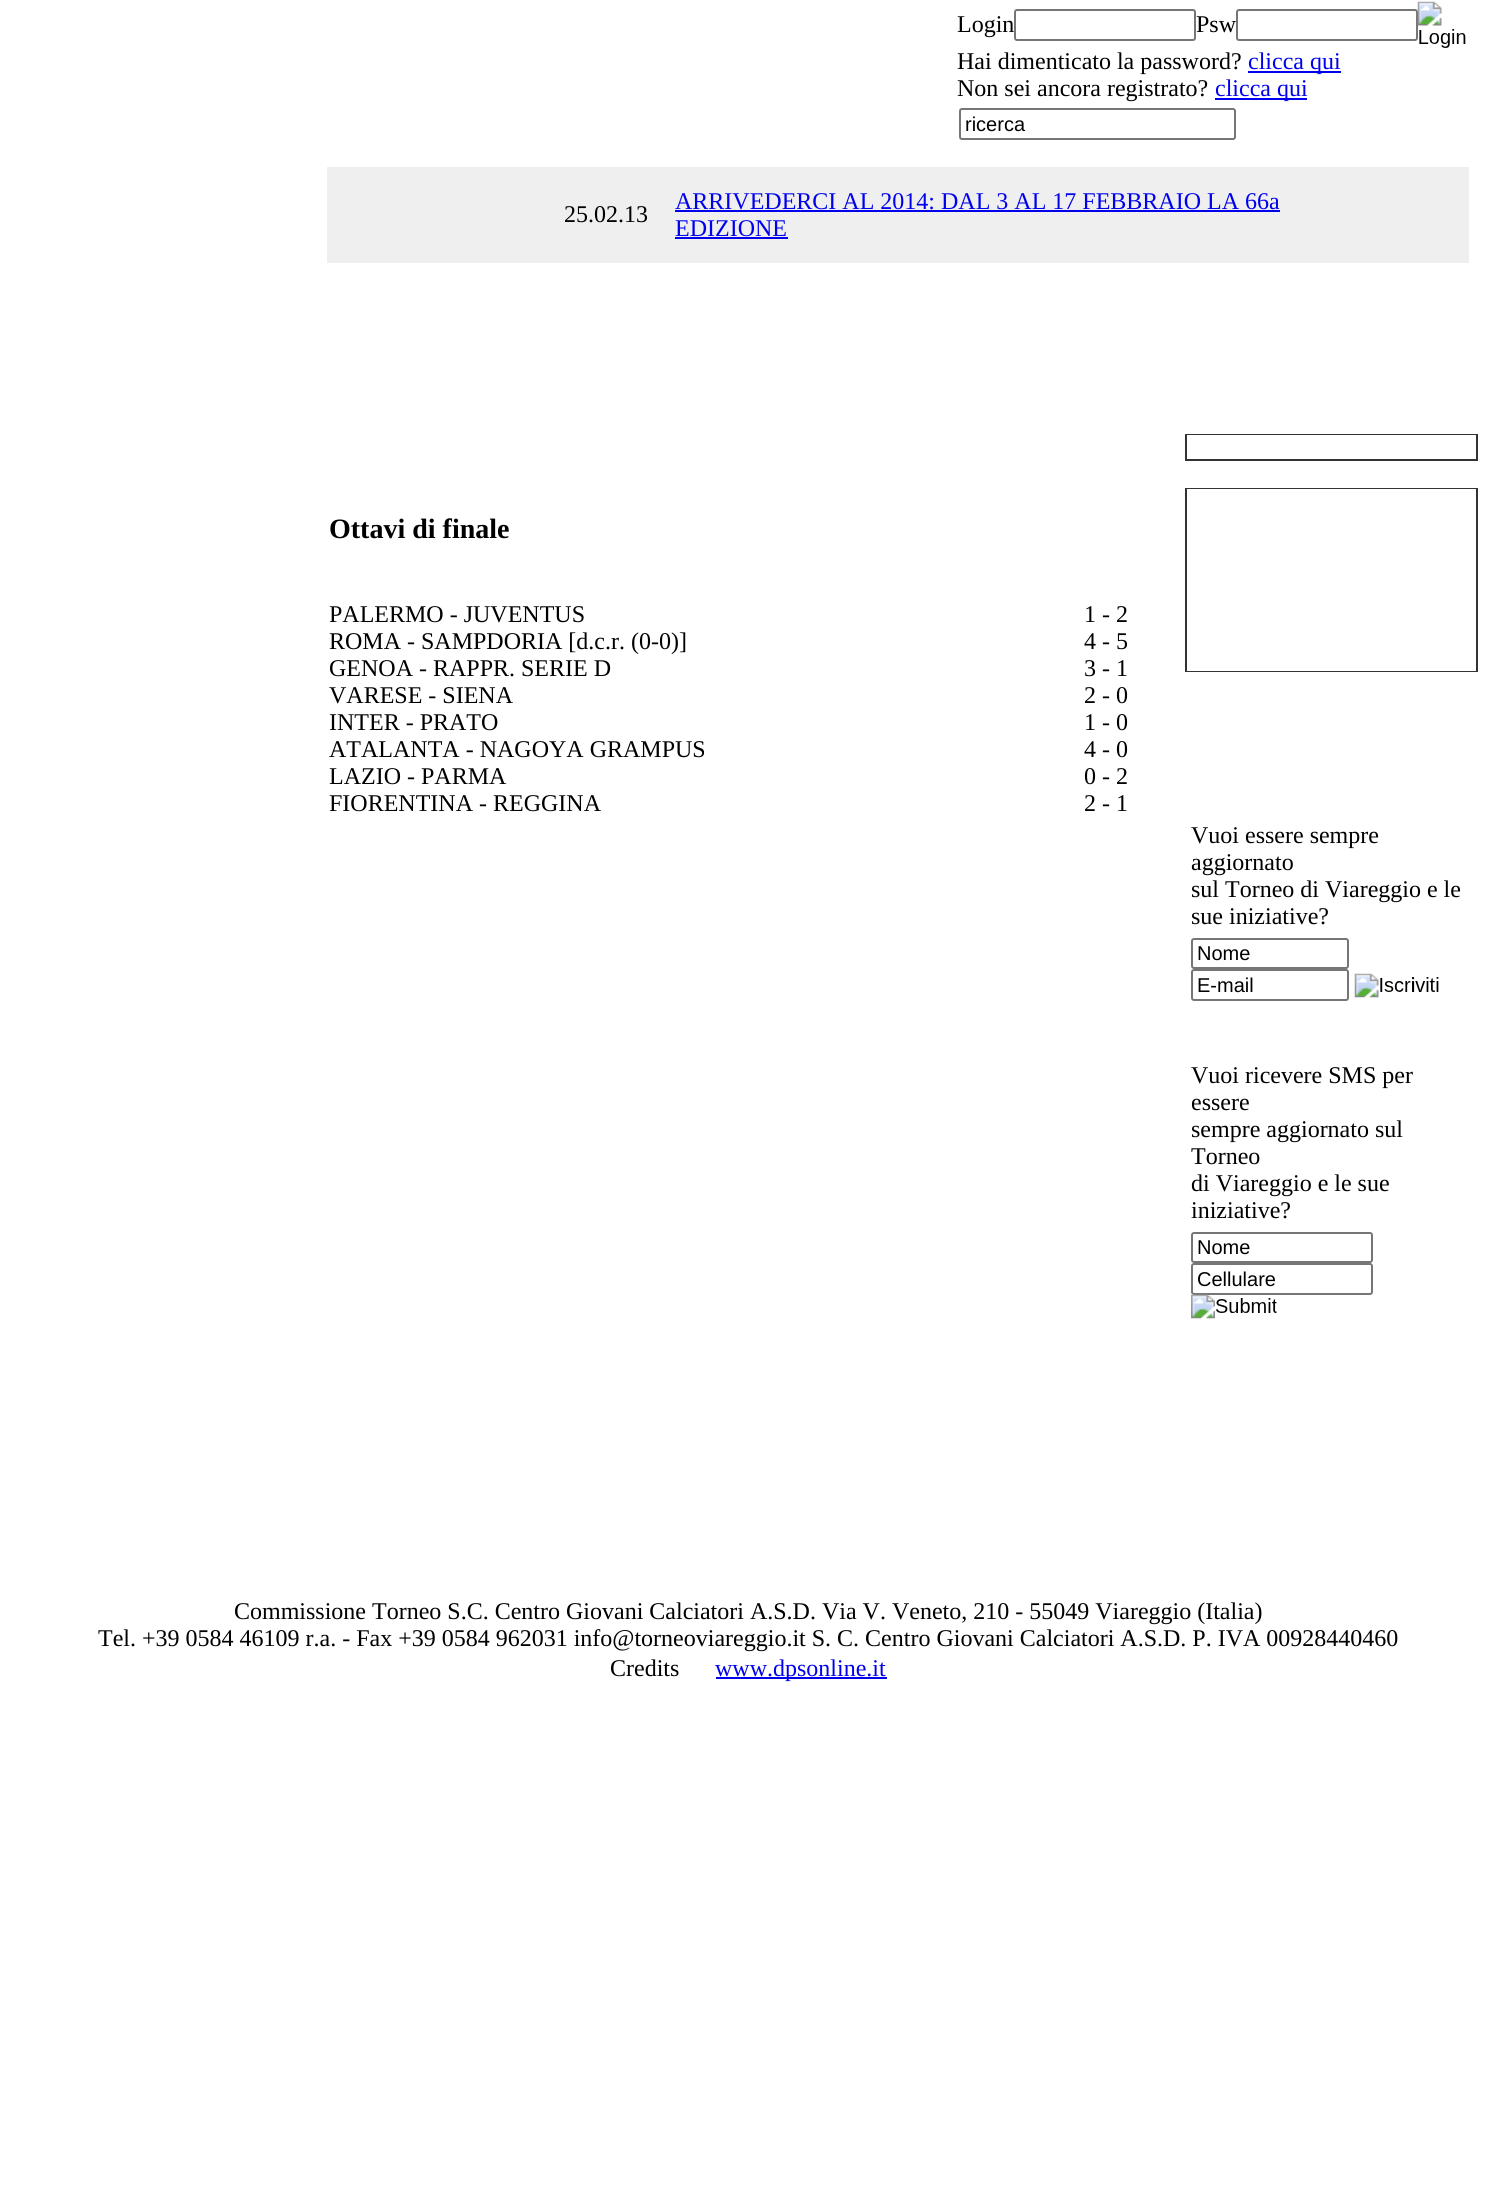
#include <cairo/cairo.h>
#include <math.h>
#include <stddef.h>


static void rounded_rect(cairo_t *cr, double x, double y, double w, double h, double r) {
  cairo_new_sub_path(cr);
  cairo_arc(cr, x + w - r, y + h - r, r, 0, M_PI / 2);
  cairo_arc(cr, x + r, y + h - r, r, M_PI / 2, M_PI);
  cairo_arc(cr, x + r, y + r, r, M_PI, 1.5 * M_PI);
  cairo_arc(cr, x + w - r, y + r, r, 1.5 * M_PI, 2 * M_PI);
  cairo_close_path(cr);
}

static void draw_image(cairo_t *cr, const char *path, double x, double y, double w, double h) {
  cairo_surface_t *image = cairo_image_surface_create_from_png(path);
  cairo_save(cr);
  cairo_set_source_surface(cr, image, x, y);
  cairo_rectangle(cr, x, y, w, h);
  cairo_fill(cr);
  cairo_restore(cr);
  cairo_surface_destroy(image);
}

static void draw(cairo_t *cr) {
  cairo_set_source_rgb(cr, 1, 1, 1);
  cairo_paint(cr);
  cairo_set_source_rgb(cr, 0, 0, 238 / 255.0);
  cairo_rectangle(cr, 1248, 71, 93, 2);
  cairo_fill(cr);
  cairo_rectangle(cr, 1215, 98, 92, 2);
  cairo_fill(cr);
  rounded_rect(cr, 960, 109, 275, 30, 2);
  cairo_set_source_rgb(cr, 118 / 255.0, 118 / 255.0, 118 / 255.0);
  cairo_stroke(cr);
  cairo_set_source_rgb(cr, 239 / 255.0, 239 / 255.0, 239 / 255.0);
  cairo_rectangle(cr, 327, 167, 1142, 96);
  cairo_fill(cr);
  cairo_set_source_rgb(cr, 0, 0, 238 / 255.0);
  cairo_rectangle(cr, 675, 210, 605, 2);
  cairo_fill(cr);
  cairo_rectangle(cr, 675, 237, 113, 2);
  cairo_fill(cr);
  cairo_set_source_rgb(cr, 51 / 255.0, 51 / 255.0, 51 / 255.0);
  cairo_rectangle(cr, 1185, 434, 293, 27);
  cairo_fill(cr);
  cairo_set_source_rgb(cr, 1, 1, 1);
  cairo_rectangle(cr, 1187, 435, 289, 24);
  cairo_fill(cr);
  cairo_set_source_rgb(cr, 51 / 255.0, 51 / 255.0, 51 / 255.0);
  cairo_rectangle(cr, 1185, 488, 293, 184);
  cairo_fill(cr);
  cairo_set_source_rgb(cr, 1, 1, 1);
  cairo_rectangle(cr, 1187, 489, 289, 182);
  cairo_fill(cr);
  rounded_rect(cr, 1192, 939, 156, 29, 2);
  cairo_set_source_rgb(cr, 118 / 255.0, 118 / 255.0, 118 / 255.0);
  cairo_stroke(cr);
  rounded_rect(cr, 1192, 970, 156, 30, 2);
  cairo_stroke(cr);
  draw_image(cr, "images/2.png", 1354, 973, 85, 25);
  rounded_rect(cr, 1192, 1233, 180, 29, 2);
  cairo_stroke(cr);
  rounded_rect(cr, 1192, 1264, 180, 30, 2);
  cairo_stroke(cr);
  draw_image(cr, "images/3.png", 1191, 1294, 86, 25);
  cairo_set_source_rgb(cr, 0, 0, 238 / 255.0);
  cairo_rectangle(cr, 716, 1677, 171, 2);
  cairo_fill(cr);
  cairo_select_font_face(cr, "Liberation Serif", CAIRO_FONT_SLANT_NORMAL, CAIRO_FONT_WEIGHT_NORMAL);
  cairo_set_font_size(cr, 24);
  cairo_set_source_rgb(cr, 0, 0, 0);
  cairo_move_to(cr, 957, 32);
  cairo_show_text(cr, "Login");
  cairo_set_source_rgb(cr, 1, 1, 1);
  rounded_rect(cr, 1015, 10, 180, 30, 2);
  cairo_fill_preserve(cr);
  cairo_set_source_rgb(cr, 118 / 255.0, 118 / 255.0, 118 / 255.0);
  cairo_stroke(cr);
  cairo_set_source_rgb(cr, 0, 0, 0);
  cairo_move_to(cr, 1196, 32);
  cairo_show_text(cr, "Psw");
  cairo_set_source_rgb(cr, 1, 1, 1);
  rounded_rect(cr, 1237, 10, 180, 30, 2);
  cairo_fill_preserve(cr);
  cairo_set_source_rgb(cr, 118 / 255.0, 118 / 255.0, 118 / 255.0);
  cairo_stroke(cr);
  draw_image(cr, "images/1.png", 1417, 1, 49, 47);
  cairo_set_source_rgb(cr, 0, 0, 0);
  cairo_move_to(cr, 957, 69);
  cairo_show_text(cr, "Hai dimenticato la password?");
  cairo_set_source_rgb(cr, 0, 0, 238 / 255.0);
  cairo_move_to(cr, 1248, 69);
  cairo_show_text(cr, "clicca qui");
  cairo_set_source_rgb(cr, 0, 0, 0);
  cairo_move_to(cr, 957, 96);
  cairo_show_text(cr, "Non sei ancora registrato?");
  cairo_set_source_rgb(cr, 0, 0, 238 / 255.0);
  cairo_move_to(cr, 1215, 96);
  cairo_show_text(cr, "clicca qui");
  cairo_select_font_face(cr, "Liberation Sans", CAIRO_FONT_SLANT_NORMAL, CAIRO_FONT_WEIGHT_NORMAL);
  cairo_set_font_size(cr, 20);
  cairo_set_source_rgb(cr, 0, 0, 0);
  cairo_move_to(cr, 965, 131);
  cairo_show_text(cr, "ricerca");
  cairo_select_font_face(cr, "Liberation Serif", CAIRO_FONT_SLANT_NORMAL, CAIRO_FONT_WEIGHT_NORMAL);
  cairo_set_font_size(cr, 24);
  cairo_move_to(cr, 564, 222);
  cairo_show_text(cr, "25.02.13");
  cairo_set_source_rgb(cr, 0, 0, 238 / 255.0);
  cairo_move_to(cr, 675, 209);
  cairo_show_text(cr, "ARRIVEDERCI AL 2014: DAL 3 AL 17 FEBBRAIO LA 66a");
  cairo_move_to(cr, 675, 236);
  cairo_show_text(cr, "EDIZIONE");
  cairo_select_font_face(cr, "Liberation Serif", CAIRO_FONT_SLANT_NORMAL, CAIRO_FONT_WEIGHT_BOLD);
  cairo_set_font_size(cr, 28);
  cairo_set_source_rgb(cr, 0, 0, 0);
  cairo_move_to(cr, 329, 538);
  cairo_show_text(cr, "Ottavi di finale");
  cairo_select_font_face(cr, "Liberation Serif", CAIRO_FONT_SLANT_NORMAL, CAIRO_FONT_WEIGHT_NORMAL);
  cairo_set_font_size(cr, 24);
  cairo_move_to(cr, 329, 622);
  cairo_show_text(cr, "PALERMO - JUVENTUS");
  cairo_move_to(cr, 1084, 622);
  cairo_show_text(cr, "1 - 2");
  cairo_move_to(cr, 329, 649);
  cairo_show_text(cr, "ROMA - SAMPDORIA [d.c.r. (0-0)]");
  cairo_move_to(cr, 1084, 649);
  cairo_show_text(cr, "4 - 5");
  cairo_move_to(cr, 329, 676);
  cairo_show_text(cr, "GENOA - RAPPR. SERIE D");
  cairo_move_to(cr, 1084, 676);
  cairo_show_text(cr, "3 - 1");
  cairo_move_to(cr, 329, 703);
  cairo_show_text(cr, "VARESE - SIENA");
  cairo_move_to(cr, 1084, 703);
  cairo_show_text(cr, "2 - 0");
  cairo_move_to(cr, 329, 730);
  cairo_show_text(cr, "INTER - PRATO");
  cairo_move_to(cr, 1084, 730);
  cairo_show_text(cr, "1 - 0");
  cairo_move_to(cr, 329, 757);
  cairo_show_text(cr, "ATALANTA - NAGOYA GRAMPUS");
  cairo_move_to(cr, 1084, 757);
  cairo_show_text(cr, "4 - 0");
  cairo_move_to(cr, 329, 784);
  cairo_show_text(cr, "LAZIO - PARMA");
  cairo_move_to(cr, 1084, 784);
  cairo_show_text(cr, "0 - 2");
  cairo_move_to(cr, 329, 811);
  cairo_show_text(cr, "FIORENTINA - REGGINA");
  cairo_move_to(cr, 1084, 811);
  cairo_show_text(cr, "2 - 1");
  cairo_move_to(cr, 1191, 843);
  cairo_show_text(cr, "Vuoi essere sempre");
  cairo_move_to(cr, 1191, 870);
  cairo_show_text(cr, "aggiornato");
  cairo_move_to(cr, 1191, 897);
  cairo_show_text(cr, "sul Torneo di Viareggio e le");
  cairo_move_to(cr, 1191, 924);
  cairo_show_text(cr, "sue iniziative?");
  cairo_select_font_face(cr, "Liberation Sans", CAIRO_FONT_SLANT_NORMAL, CAIRO_FONT_WEIGHT_NORMAL);
  cairo_set_font_size(cr, 20);
  cairo_move_to(cr, 1197, 960);
  cairo_show_text(cr, "Nome");
  cairo_move_to(cr, 1197, 992);
  cairo_show_text(cr, "E-mail");
  cairo_move_to(cr, 1411, 992);
  cairo_show_text(cr, "i");
  cairo_select_font_face(cr, "Liberation Serif", CAIRO_FONT_SLANT_NORMAL, CAIRO_FONT_WEIGHT_NORMAL);
  cairo_set_font_size(cr, 24);
  cairo_move_to(cr, 1191, 1083);
  cairo_show_text(cr, "Vuoi ricevere SMS per");
  cairo_move_to(cr, 1191, 1110);
  cairo_show_text(cr, "essere");
  cairo_move_to(cr, 1191, 1137);
  cairo_show_text(cr, "sempre aggiornato sul");
  cairo_move_to(cr, 1191, 1164);
  cairo_show_text(cr, "Torneo");
  cairo_move_to(cr, 1191, 1191);
  cairo_show_text(cr, "di Viareggio e le sue");
  cairo_move_to(cr, 1191, 1218);
  cairo_show_text(cr, "iniziative?");
  cairo_select_font_face(cr, "Liberation Sans", CAIRO_FONT_SLANT_NORMAL, CAIRO_FONT_WEIGHT_NORMAL);
  cairo_set_font_size(cr, 20);
  cairo_move_to(cr, 1197, 1254);
  cairo_show_text(cr, "Nome");
  cairo_move_to(cr, 1197, 1286);
  cairo_show_text(cr, "Cellulare");
  cairo_select_font_face(cr, "Liberation Serif", CAIRO_FONT_SLANT_NORMAL, CAIRO_FONT_WEIGHT_NORMAL);
  cairo_set_font_size(cr, 24);
  cairo_move_to(cr, 234, 1619);
  cairo_show_text(cr, "Commissione Torneo S.C. Centro Giovani Calciatori A.S.D. Via V. Veneto, 210 - 55049 Viareggio (Italia)");
  cairo_move_to(cr, 98, 1646);
  cairo_show_text(cr, "Tel. +39 0584 46109 r.a. - Fax +39 0584 962031 info@torneoviareggio.it S. C. Centro Giovani Calciatori A.S.D. P. IVA 00928440460");
  cairo_move_to(cr, 610, 1676);
  cairo_show_text(cr, "Credits");
  cairo_set_source_rgb(cr, 0, 0, 238 / 255.0);
  cairo_move_to(cr, 715, 1676);
  cairo_show_text(cr, "www.dpsonline.it");
}

int main(void) {
  cairo_surface_t *surface = cairo_image_surface_create(CAIRO_FORMAT_RGB24, 1495, 2186);
  cairo_t *cr = cairo_create(surface);
  cairo_font_options_t *options = cairo_font_options_create();
  cairo_font_options_set_hint_metrics(options, CAIRO_HINT_METRICS_OFF);
  cairo_font_options_set_hint_style(options, CAIRO_HINT_STYLE_NONE);
  cairo_set_font_options(cr, options);
  cairo_set_miter_limit(cr, 4);
  draw(cr);
  cairo_surface_write_to_png(surface, "out.png");
  cairo_font_options_destroy(options);
  cairo_destroy(cr);
  cairo_surface_destroy(surface);
  return 0;
}
